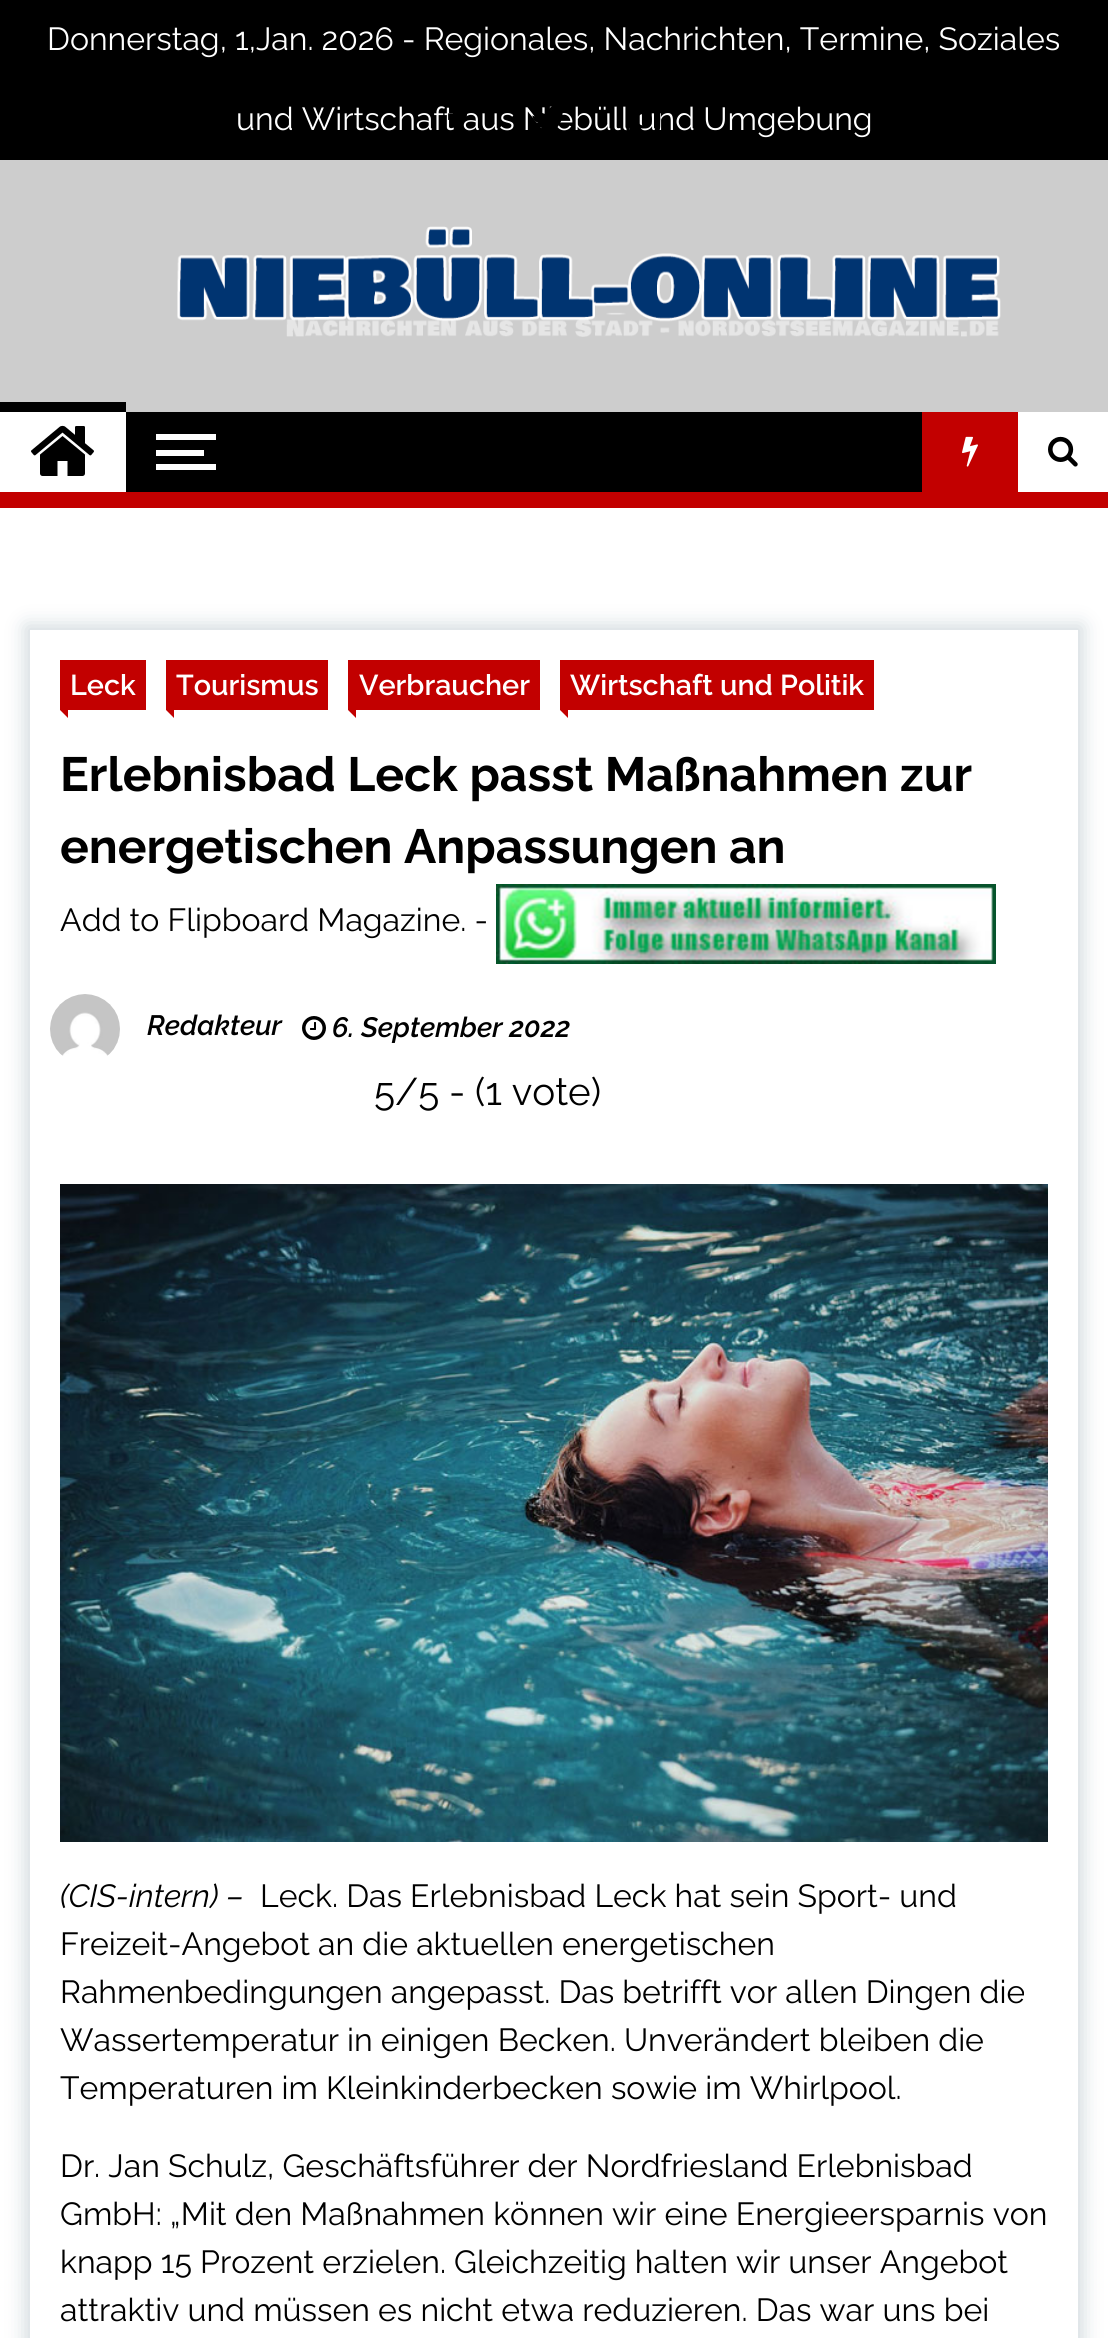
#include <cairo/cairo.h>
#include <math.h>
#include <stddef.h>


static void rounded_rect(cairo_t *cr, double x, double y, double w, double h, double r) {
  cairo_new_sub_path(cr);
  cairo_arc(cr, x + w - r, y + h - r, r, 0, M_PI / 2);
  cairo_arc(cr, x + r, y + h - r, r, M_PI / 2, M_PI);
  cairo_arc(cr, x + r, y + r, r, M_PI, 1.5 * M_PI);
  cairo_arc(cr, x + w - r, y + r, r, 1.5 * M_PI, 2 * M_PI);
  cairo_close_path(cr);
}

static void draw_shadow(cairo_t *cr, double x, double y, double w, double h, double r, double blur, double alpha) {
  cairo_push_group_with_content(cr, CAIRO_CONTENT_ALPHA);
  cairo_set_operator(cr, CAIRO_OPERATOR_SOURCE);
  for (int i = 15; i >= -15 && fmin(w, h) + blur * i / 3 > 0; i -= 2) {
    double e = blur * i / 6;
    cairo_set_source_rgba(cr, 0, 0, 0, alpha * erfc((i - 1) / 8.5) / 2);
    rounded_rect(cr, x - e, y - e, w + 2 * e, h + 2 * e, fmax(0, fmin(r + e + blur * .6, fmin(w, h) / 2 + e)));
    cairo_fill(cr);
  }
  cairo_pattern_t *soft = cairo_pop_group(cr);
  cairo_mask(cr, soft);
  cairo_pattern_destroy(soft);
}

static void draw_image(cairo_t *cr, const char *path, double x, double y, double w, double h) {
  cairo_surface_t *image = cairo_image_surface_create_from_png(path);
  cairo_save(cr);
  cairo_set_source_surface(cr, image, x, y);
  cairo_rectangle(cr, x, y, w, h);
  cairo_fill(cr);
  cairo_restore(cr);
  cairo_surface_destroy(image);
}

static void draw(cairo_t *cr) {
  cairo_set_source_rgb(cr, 1, 1, 1);
  cairo_paint(cr);
  cairo_set_source_rgb(cr, 0, 0, 0);
  cairo_rectangle(cr, 0, 0, 1108, 160);
  cairo_fill(cr);
  cairo_set_source_rgb(cr, 205 / 255.0, 205 / 255.0, 205 / 255.0);
  cairo_rectangle(cr, 0, 160, 1108, 252);
  cairo_fill(cr);
  draw_image(cr, "images/4.png", 177, 226, 824, 111);
  cairo_set_source_rgb(cr, 0, 0, 0);
  cairo_rectangle(cr, 126, 412, 796, 80);
  cairo_fill(cr);
  cairo_rectangle(cr, 0, 402, 126, 10);
  cairo_fill(cr);
  draw_image(cr, "images/5.png", 31, 425, 63, 51);
  cairo_set_source_rgb(cr, 1, 1, 1);
  cairo_rectangle(cr, 156, 434, 60, 6);
  cairo_fill(cr);
  cairo_rectangle(cr, 156, 464, 60, 6);
  cairo_fill(cr);
  cairo_rectangle(cr, 156, 450, 48, 6);
  cairo_fill(cr);
  cairo_set_source_rgb(cr, 194 / 255.0, 0, 0);
  cairo_rectangle(cr, 922, 412, 96, 80);
  cairo_fill(cr);
  draw_image(cr, "images/6.png", 962, 436, 16, 31);
  draw_image(cr, "images/7.png", 1048, 436, 30, 31);
  cairo_rectangle(cr, 0, 492, 1108, 16);
  cairo_fill(cr);
  cairo_save(cr);
  cairo_set_fill_rule(cr, CAIRO_FILL_RULE_EVEN_ODD);
  cairo_new_path(cr);
  cairo_move_to(cr, 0, 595);
  cairo_line_to(cr, 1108, 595);
  cairo_line_to(cr, 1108, 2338);
  cairo_line_to(cr, 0, 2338);
  cairo_close_path(cr);
  cairo_move_to(cr, 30, 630);
  cairo_line_to(cr, 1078, 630);
  cairo_line_to(cr, 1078, 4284);
  cairo_line_to(cr, 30, 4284);
  cairo_close_path(cr);
  cairo_clip(cr);
  cairo_set_source_rgb(cr, 207 / 255.0, 216 / 255.0, 220 / 255.0);
  draw_shadow(cr, 26, 626, 1056, 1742, 0, 10, 1);
  cairo_restore(cr);
  cairo_rectangle(cr, 60, 660, 86, 50);
  cairo_fill(cr);
  cairo_new_path(cr);
  cairo_move_to(cr, 68, 710);
  cairo_line_to(cr, 68, 718);
  cairo_line_to(cr, 60, 710);
  cairo_close_path(cr);
  cairo_fill(cr);
  cairo_rectangle(cr, 166, 660, 162, 50);
  cairo_fill(cr);
  cairo_new_path(cr);
  cairo_move_to(cr, 174, 710);
  cairo_line_to(cr, 174, 718);
  cairo_line_to(cr, 166, 710);
  cairo_close_path(cr);
  cairo_fill(cr);
  cairo_rectangle(cr, 348, 660, 192, 50);
  cairo_fill(cr);
  cairo_new_path(cr);
  cairo_move_to(cr, 356, 710);
  cairo_line_to(cr, 356, 718);
  cairo_line_to(cr, 348, 710);
  cairo_close_path(cr);
  cairo_fill(cr);
  cairo_rectangle(cr, 560, 660, 314, 50);
  cairo_fill(cr);
  cairo_new_path(cr);
  cairo_move_to(cr, 568, 710);
  cairo_line_to(cr, 568, 718);
  cairo_line_to(cr, 560, 710);
  cairo_close_path(cr);
  cairo_fill(cr);
  draw_image(cr, "images/8.png", 496, 884, 500, 80);
  draw_image(cr, "images/9.png", 50, 994, 70, 62);
  draw_image(cr, "images/10.png", 302, 1016, 24, 24);
  draw_image(cr, "images/11.png", 60, 1184, 988, 658);
  cairo_select_font_face(cr, "Raleway", CAIRO_FONT_SLANT_NORMAL, CAIRO_FONT_WEIGHT_NORMAL);
  cairo_set_font_size(cr, 32);
  cairo_set_source_rgb(cr, 1, 1, 1);
  cairo_move_to(cr, 47, 50);
  cairo_show_text(cr, "Donnerstag, 1,Jan. 2026 - Regionales, Nachrichten, Termine, Soziales");
  cairo_move_to(cr, 236, 130);
  cairo_show_text(cr, "und Wirtschaft aus Niebüll und Umgebung");
  draw_image(cr, "images/1.png", 448, 113, 20, 17);
  draw_image(cr, "images/2.png", 532, 106, 31, 24);
  draw_image(cr, "images/3.png", 626, 113, 35, 18);
  cairo_select_font_face(cr, "Raleway SemiBold", CAIRO_FONT_SLANT_NORMAL, CAIRO_FONT_WEIGHT_NORMAL);
  cairo_set_font_size(cr, 28.75);
  cairo_move_to(cr, 70, 695);
  cairo_show_text(cr, "Leck");
  cairo_move_to(cr, 176, 695);
  cairo_show_text(cr, "Tourismus");
  cairo_move_to(cr, 359, 695);
  cairo_show_text(cr, "Verbraucher");
  cairo_move_to(cr, 570, 695);
  cairo_show_text(cr, "Wirtschaft und Politik");
  cairo_select_font_face(cr, "Raleway", CAIRO_FONT_SLANT_NORMAL, CAIRO_FONT_WEIGHT_BOLD);
  cairo_set_font_size(cr, 48);
  cairo_set_source_rgb(cr, 0, 0, 0);
  cairo_move_to(cr, 60, 791);
  cairo_show_text(cr, "Erlebnisbad Leck passt Maßnahmen zur");
  cairo_move_to(cr, 60, 863);
  cairo_show_text(cr, "energetischen Anpassungen an");
  cairo_select_font_face(cr, "Raleway", CAIRO_FONT_SLANT_NORMAL, CAIRO_FONT_WEIGHT_NORMAL);
  cairo_set_font_size(cr, 32);
  cairo_move_to(cr, 60, 931);
  cairo_show_text(cr, "Add to Flipboard Magazine. -");
  cairo_select_font_face(cr, "Raleway SemiBold", CAIRO_FONT_SLANT_ITALIC, CAIRO_FONT_WEIGHT_NORMAL);
  cairo_set_font_size(cr, 28);
  cairo_move_to(cr, 147, 1035);
  cairo_show_text(cr, "Redakteur");
  cairo_move_to(cr, 332, 1037);
  cairo_show_text(cr, "6. September 2022");
  cairo_select_font_face(cr, "Raleway", CAIRO_FONT_SLANT_NORMAL, CAIRO_FONT_WEIGHT_NORMAL);
  cairo_set_font_size(cr, 38.5);
  cairo_move_to(cr, 374, 1105);
  cairo_show_text(cr, "5/5 - (1 vote)");
  cairo_select_font_face(cr, "Raleway", CAIRO_FONT_SLANT_ITALIC, CAIRO_FONT_WEIGHT_NORMAL);
  cairo_set_font_size(cr, 32);
  cairo_move_to(cr, 60, 1907);
  cairo_show_text(cr, "(CIS-intern) –");
  cairo_select_font_face(cr, "Raleway", CAIRO_FONT_SLANT_NORMAL, CAIRO_FONT_WEIGHT_NORMAL);
  cairo_move_to(cr, 260, 1907);
  cairo_show_text(cr, "Leck. Das Erlebnisbad Leck hat sein Sport- und");
  cairo_move_to(cr, 60, 1955);
  cairo_show_text(cr, "Freizeit-Angebot an die aktuellen energetischen");
  cairo_move_to(cr, 60, 2003);
  cairo_show_text(cr, "Rahmenbedingungen angepasst. Das betrifft vor allen Dingen die");
  cairo_move_to(cr, 60, 2051);
  cairo_show_text(cr, "Wassertemperatur in einigen Becken. Unverändert bleiben die");
  cairo_move_to(cr, 60, 2099);
  cairo_show_text(cr, "Temperaturen im Kleinkinderbecken sowie im Whirlpool.");
  cairo_move_to(cr, 60, 2177);
  cairo_show_text(cr, "Dr. Jan Schulz, Geschäftsführer der Nordfriesland Erlebnisbad");
  cairo_move_to(cr, 60, 2225);
  cairo_show_text(cr, "GmbH: „Mit den Maßnahmen können wir eine Energieersparnis von");
  cairo_move_to(cr, 60, 2273);
  cairo_show_text(cr, "knapp 15 Prozent erzielen. Gleichzeitig halten wir unser Angebot");
  cairo_move_to(cr, 60, 2321);
  cairo_show_text(cr, "attraktiv und müssen es nicht etwa reduzieren. Das war uns bei");
}

int main(void) {
  cairo_surface_t *surface = cairo_image_surface_create(CAIRO_FORMAT_RGB24, 1108, 2338);
  cairo_t *cr = cairo_create(surface);
  cairo_font_options_t *options = cairo_font_options_create();
  cairo_font_options_set_hint_metrics(options, CAIRO_HINT_METRICS_OFF);
  cairo_font_options_set_hint_style(options, CAIRO_HINT_STYLE_NONE);
  cairo_set_font_options(cr, options);
  cairo_set_miter_limit(cr, 4);
  draw(cr);
  cairo_surface_write_to_png(surface, "out.png");
  cairo_font_options_destroy(options);
  cairo_destroy(cr);
  cairo_surface_destroy(surface);
  return 0;
}
